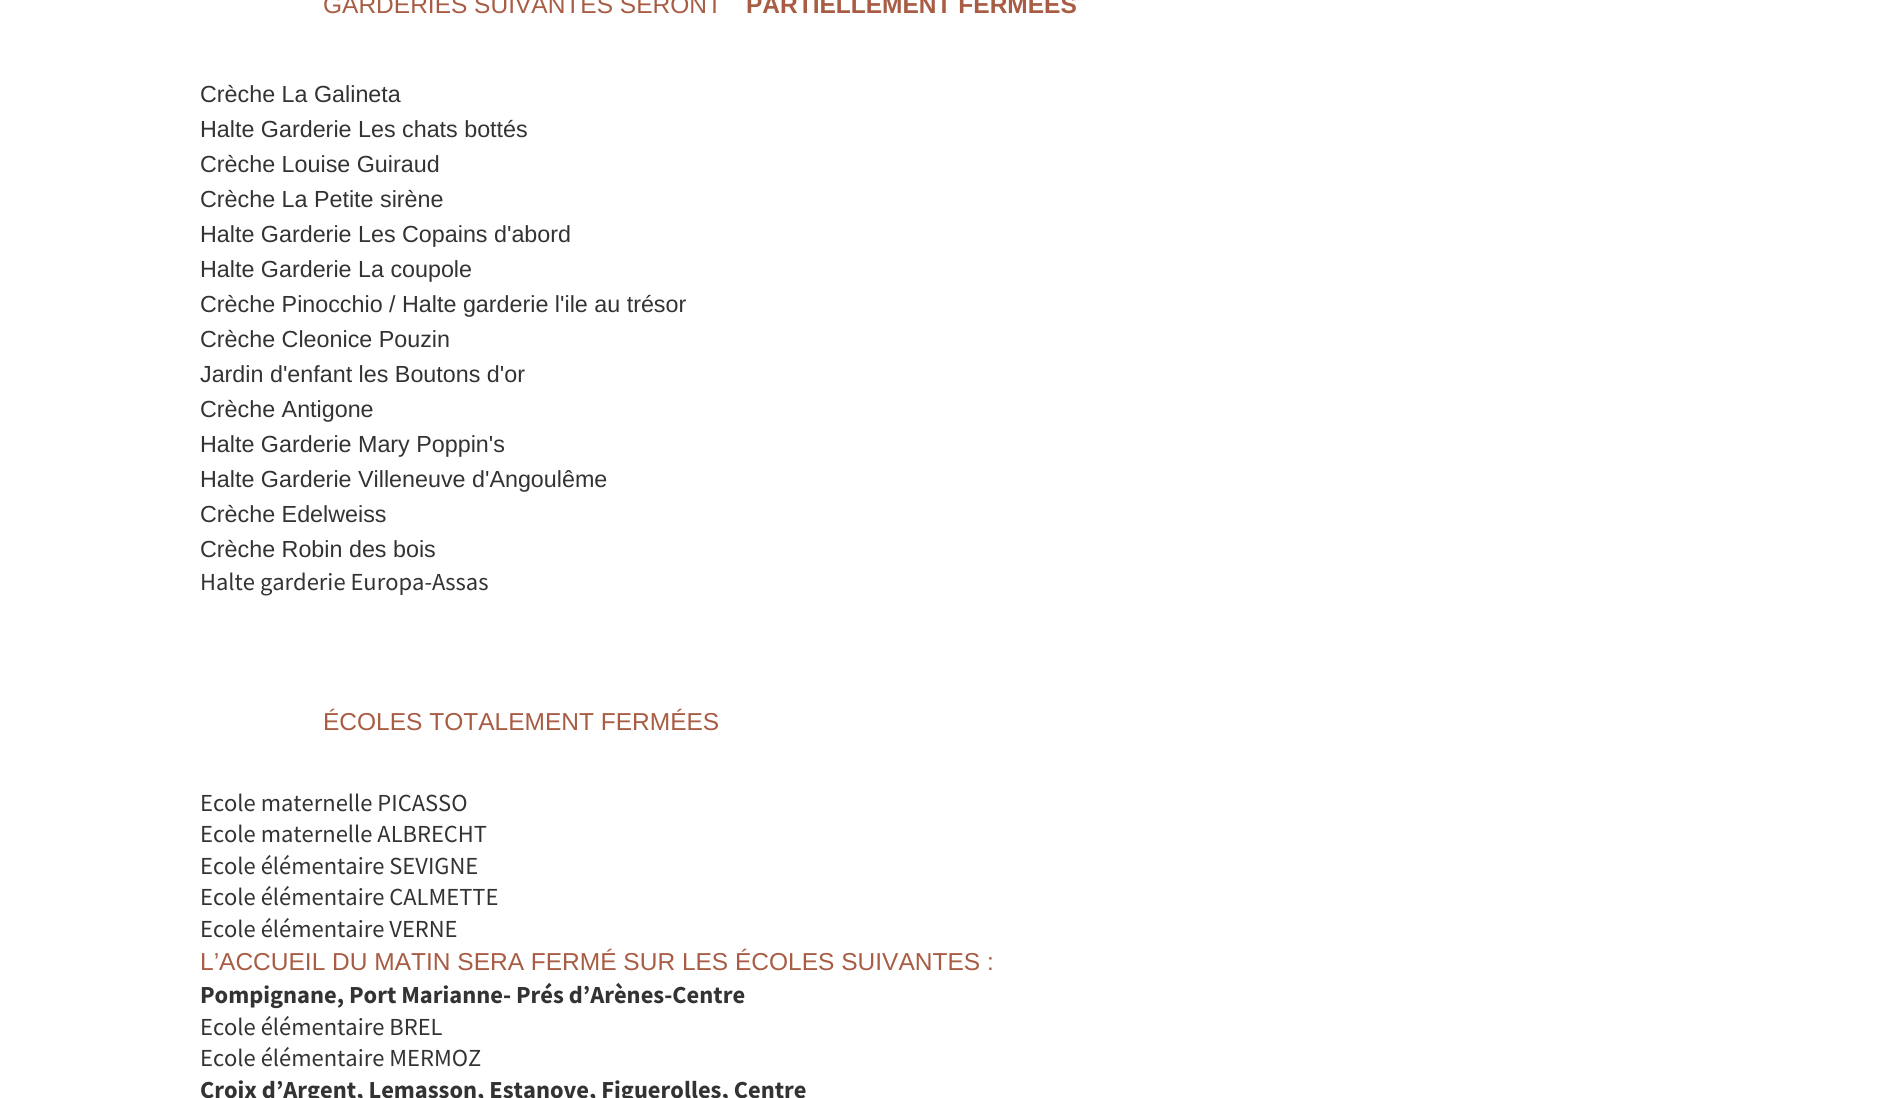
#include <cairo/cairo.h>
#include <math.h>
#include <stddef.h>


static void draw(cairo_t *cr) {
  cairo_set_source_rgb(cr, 1, 1, 1);
  cairo_paint(cr);
  cairo_select_font_face(cr, "Liberation Sans", CAIRO_FONT_SLANT_NORMAL, CAIRO_FONT_WEIGHT_NORMAL);
  cairo_set_font_size(cr, 24.5);
  cairo_set_source_rgb(cr, 168 / 255.0, 92 / 255.0, 67 / 255.0);
  cairo_move_to(cr, 323, 13);
  cairo_show_text(cr, "GARDERIES SUIVANTES SERONT");
  cairo_select_font_face(cr, "Liberation Sans", CAIRO_FONT_SLANT_NORMAL, CAIRO_FONT_WEIGHT_BOLD);
  cairo_move_to(cr, 746, 13);
  cairo_show_text(cr, "PARTIELLEMENT FERMÉES");
  cairo_select_font_face(cr, "Liberation Sans", CAIRO_FONT_SLANT_NORMAL, CAIRO_FONT_WEIGHT_NORMAL);
  cairo_set_font_size(cr, 23.3);
  cairo_set_source_rgb(cr, 51 / 255.0, 51 / 255.0, 51 / 255.0);
  cairo_move_to(cr, 200, 102);
  cairo_show_text(cr, "Crèche La Galineta");
  cairo_move_to(cr, 200, 137);
  cairo_show_text(cr, "Halte Garderie Les chats bottés");
  cairo_move_to(cr, 200, 172);
  cairo_show_text(cr, "Crèche Louise Guiraud");
  cairo_move_to(cr, 200, 207);
  cairo_show_text(cr, "Crèche La Petite sirène");
  cairo_move_to(cr, 200, 242);
  cairo_show_text(cr, "Halte Garderie Les Copains d'abord");
  cairo_move_to(cr, 200, 277);
  cairo_show_text(cr, "Halte Garderie La coupole");
  cairo_move_to(cr, 200, 312);
  cairo_show_text(cr, "Crèche Pinocchio / Halte garderie l'ile au trésor");
  cairo_move_to(cr, 200, 347);
  cairo_show_text(cr, "Crèche Cleonice Pouzin");
  cairo_move_to(cr, 200, 382);
  cairo_show_text(cr, "Jardin d'enfant les Boutons d'or");
  cairo_move_to(cr, 200, 417);
  cairo_show_text(cr, "Crèche Antigone");
  cairo_move_to(cr, 200, 452);
  cairo_show_text(cr, "Halte Garderie Mary Poppin's");
  cairo_move_to(cr, 200, 487);
  cairo_show_text(cr, "Halte Garderie Villeneuve d'Angoulême");
  cairo_move_to(cr, 200, 522);
  cairo_show_text(cr, "Crèche Edelweiss");
  cairo_move_to(cr, 200, 557);
  cairo_show_text(cr, "Crèche Robin des bois");
  cairo_select_font_face(cr, "Source Sans Pro", CAIRO_FONT_SLANT_NORMAL, CAIRO_FONT_WEIGHT_NORMAL);
  cairo_set_font_size(cr, 24.5);
  cairo_move_to(cr, 200, 590);
  cairo_show_text(cr, "Halte garderie Europa-Assas");
  cairo_select_font_face(cr, "Liberation Sans", CAIRO_FONT_SLANT_NORMAL, CAIRO_FONT_WEIGHT_NORMAL);
  cairo_set_source_rgb(cr, 168 / 255.0, 92 / 255.0, 67 / 255.0);
  cairo_move_to(cr, 323, 730);
  cairo_show_text(cr, "ÉCOLES TOTALEMENT FERMÉES");
  cairo_select_font_face(cr, "Source Sans Pro", CAIRO_FONT_SLANT_NORMAL, CAIRO_FONT_WEIGHT_NORMAL);
  cairo_set_source_rgb(cr, 51 / 255.0, 51 / 255.0, 51 / 255.0);
  cairo_move_to(cr, 200, 811);
  cairo_show_text(cr, "Ecole maternelle PICASSO");
  cairo_move_to(cr, 200, 842);
  cairo_show_text(cr, "Ecole maternelle ALBRECHT");
  cairo_move_to(cr, 200, 874);
  cairo_show_text(cr, "Ecole élémentaire SEVIGNE");
  cairo_move_to(cr, 200, 905);
  cairo_show_text(cr, "Ecole élémentaire CALMETTE");
  cairo_move_to(cr, 200, 937);
  cairo_show_text(cr, "Ecole élémentaire VERNE");
  cairo_select_font_face(cr, "Liberation Sans", CAIRO_FONT_SLANT_NORMAL, CAIRO_FONT_WEIGHT_NORMAL);
  cairo_set_source_rgb(cr, 168 / 255.0, 92 / 255.0, 67 / 255.0);
  cairo_move_to(cr, 200, 970);
  cairo_show_text(cr, "L’ACCUEIL DU MATIN SERA FERMÉ SUR LES ÉCOLES SUIVANTES :");
  cairo_select_font_face(cr, "Source Sans Pro", CAIRO_FONT_SLANT_NORMAL, CAIRO_FONT_WEIGHT_BOLD);
  cairo_set_source_rgb(cr, 51 / 255.0, 51 / 255.0, 51 / 255.0);
  cairo_move_to(cr, 200, 1003);
  cairo_show_text(cr, "Pompignane, Port Marianne- Prés d’Arènes-Centre");
  cairo_select_font_face(cr, "Source Sans Pro", CAIRO_FONT_SLANT_NORMAL, CAIRO_FONT_WEIGHT_NORMAL);
  cairo_move_to(cr, 200, 1035);
  cairo_show_text(cr, "Ecole élémentaire BREL");
  cairo_move_to(cr, 200, 1066);
  cairo_show_text(cr, "Ecole élémentaire MERMOZ");
  cairo_select_font_face(cr, "Source Sans Pro", CAIRO_FONT_SLANT_NORMAL, CAIRO_FONT_WEIGHT_BOLD);
  cairo_move_to(cr, 200, 1098);
  cairo_show_text(cr, "Croix d’Argent, Lemasson, Estanove, Figuerolles, Centre");
}

int main(void) {
  cairo_surface_t *surface = cairo_image_surface_create(CAIRO_FORMAT_RGB24, 1888, 1098);
  cairo_t *cr = cairo_create(surface);
  cairo_font_options_t *options = cairo_font_options_create();
  cairo_font_options_set_hint_metrics(options, CAIRO_HINT_METRICS_OFF);
  cairo_font_options_set_hint_style(options, CAIRO_HINT_STYLE_NONE);
  cairo_set_font_options(cr, options);
  cairo_set_miter_limit(cr, 4);
  draw(cr);
  cairo_surface_write_to_png(surface, "out.png");
  cairo_font_options_destroy(options);
  cairo_destroy(cr);
  cairo_surface_destroy(surface);
  return 0;
}
